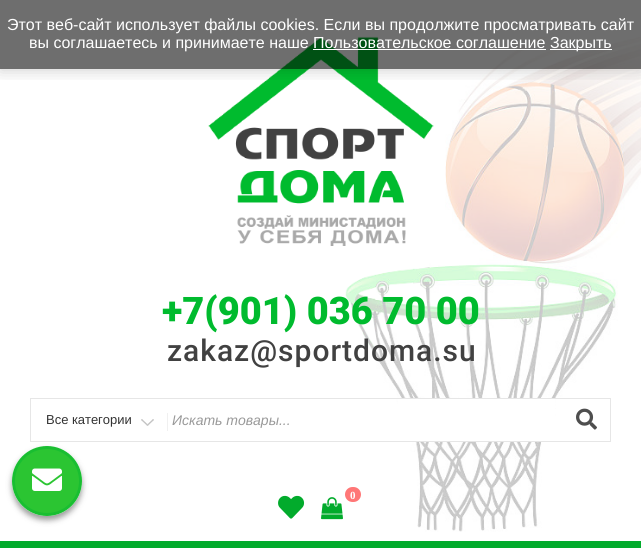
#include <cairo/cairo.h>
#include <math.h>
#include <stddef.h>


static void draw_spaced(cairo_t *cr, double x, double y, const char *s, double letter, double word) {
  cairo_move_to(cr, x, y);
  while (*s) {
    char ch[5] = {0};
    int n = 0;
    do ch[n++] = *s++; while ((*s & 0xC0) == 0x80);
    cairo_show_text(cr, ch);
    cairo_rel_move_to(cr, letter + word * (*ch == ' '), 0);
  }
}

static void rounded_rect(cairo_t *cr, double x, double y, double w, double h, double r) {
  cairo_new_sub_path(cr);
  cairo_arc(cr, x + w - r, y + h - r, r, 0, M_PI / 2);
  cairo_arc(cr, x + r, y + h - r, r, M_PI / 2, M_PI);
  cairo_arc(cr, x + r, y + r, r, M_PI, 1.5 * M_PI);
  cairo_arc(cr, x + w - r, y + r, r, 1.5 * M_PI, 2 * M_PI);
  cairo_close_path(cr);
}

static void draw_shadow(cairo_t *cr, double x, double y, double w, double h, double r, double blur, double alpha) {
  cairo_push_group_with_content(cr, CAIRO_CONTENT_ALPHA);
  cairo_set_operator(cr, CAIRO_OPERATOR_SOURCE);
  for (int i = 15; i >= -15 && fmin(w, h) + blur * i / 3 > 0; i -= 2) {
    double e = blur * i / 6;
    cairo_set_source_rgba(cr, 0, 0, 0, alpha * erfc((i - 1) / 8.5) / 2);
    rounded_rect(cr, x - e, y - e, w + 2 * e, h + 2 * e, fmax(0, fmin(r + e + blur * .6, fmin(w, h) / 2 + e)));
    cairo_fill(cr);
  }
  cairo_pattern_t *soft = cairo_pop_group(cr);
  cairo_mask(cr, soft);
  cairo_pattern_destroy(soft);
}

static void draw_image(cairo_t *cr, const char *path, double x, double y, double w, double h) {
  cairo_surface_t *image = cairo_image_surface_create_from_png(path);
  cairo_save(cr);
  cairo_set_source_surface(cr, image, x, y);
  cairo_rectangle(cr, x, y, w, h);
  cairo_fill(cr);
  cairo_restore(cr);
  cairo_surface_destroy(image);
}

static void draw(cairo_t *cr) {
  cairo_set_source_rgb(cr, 1, 1, 1);
  cairo_paint(cr);
  draw_image(cr, "images/1.png", 345, 37, 296, 495);
  draw_image(cr, "images/2.png", 208, 36, 226, 210);
  cairo_save(cr);
  cairo_rectangle(cr, 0, 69, 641, 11);
  cairo_clip(cr);
  cairo_set_source_rgb(cr, 0, 0, 0);
  draw_shadow(cr, 0, 1, 641, 69, 0, 8, 0.2);
  cairo_restore(cr);
  cairo_set_source_rgba(cr, 0, 0, 0, 0.57);
  cairo_rectangle(cr, 0, 0, 641, 69);
  cairo_fill(cr);
  cairo_set_source_rgb(cr, 1, 1, 1);
  cairo_rectangle(cr, 550, 49, 62, 1);
  cairo_fill(cr);
  cairo_rectangle(cr, 313, 49, 233, 1);
  cairo_fill(cr);
  cairo_save(cr);
  cairo_set_fill_rule(cr, CAIRO_FILL_RULE_EVEN_ODD);
  cairo_new_path(cr);
  cairo_move_to(cr, 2, 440);
  cairo_line_to(cr, 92, 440);
  cairo_line_to(cr, 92, 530);
  cairo_line_to(cr, 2, 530);
  cairo_close_path(cr);
  cairo_move_to(cr, 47, 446);
  cairo_curve_to(cr, 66.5, 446, 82, 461.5, 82, 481);
  cairo_curve_to(cr, 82, 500.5, 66.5, 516, 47, 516);
  cairo_curve_to(cr, 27.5, 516, 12, 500.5, 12, 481);
  cairo_curve_to(cr, 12, 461.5, 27.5, 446, 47, 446);
  cairo_close_path(cr);
  cairo_clip(cr);
  cairo_set_source_rgb(cr, 0, 0, 0);
  draw_shadow(cr, 12, 450, 70, 70, 35, 3, 0.4);
  cairo_restore(cr);
  cairo_set_source_rgba(cr, 0, 185 / 255.0, 9 / 255.0, 0.83);
  cairo_arc(cr, 47, 481, 33.5, 0, 2 * M_PI);
  cairo_fill_preserve(cr);
  cairo_set_source_rgb(cr, 25 / 255.0, 190 / 255.0, 49 / 255.0);
  cairo_set_line_width(cr, 3);
  cairo_stroke(cr);
  draw_image(cr, "images/3.png", 32, 468, 30, 23);
  cairo_set_source_rgb(cr, 1, 1, 1);
  cairo_rectangle(cr, 398, 399, 157, 42);
  cairo_fill(cr);
  cairo_rectangle(cr, 30.5, 398.5, 580, 43);
  cairo_set_source_rgb(cr, 230 / 255.0, 230 / 255.0, 230 / 255.0);
  cairo_set_line_width(cr, 1);
  cairo_stroke(cr);
  draw_image(cr, "images/4.png", 141, 419, 13, 7);
  cairo_set_source_rgb(cr, 240 / 255.0, 240 / 255.0, 240 / 255.0);
  cairo_rectangle(cr, 167, 413, 1, 18);
  cairo_fill(cr);
  draw_image(cr, "images/5.png", 576, 408, 21, 22);
  draw_image(cr, "images/6.png", 278, 495, 27, 24);
  cairo_set_source_rgb(cr, 1, 119 / 255.0, 119 / 255.0);
  rounded_rect(cr, 345, 487, 16, 15, 7.5);
  cairo_fill(cr);
  draw_image(cr, "images/7.png", 321, 497, 22, 23);
  cairo_set_source_rgb(cr, 2 / 255.0, 171 / 255.0, 44 / 255.0);
  cairo_rectangle(cr, 0, 541, 641, 7);
  cairo_fill(cr);
  cairo_select_font_face(cr, "Liberation Sans", CAIRO_FONT_SLANT_NORMAL, CAIRO_FONT_WEIGHT_NORMAL);
  cairo_set_font_size(cr, 16);
  cairo_set_source_rgb(cr, 1, 1, 1);
  cairo_move_to(cr, 7, 30);
  cairo_show_text(cr, "Этот веб-сайт использует файлы cookies. Если вы продолжите просматривать сайт");
  cairo_move_to(cr, 29, 48);
  cairo_show_text(cr, "вы соглашаетесь и принимаете наше Пользовательское соглашение");
  cairo_move_to(cr, 550, 48);
  cairo_show_text(cr, "Закрыть");
  cairo_select_font_face(cr, "Roboto Black", CAIRO_FONT_SLANT_NORMAL, CAIRO_FONT_WEIGHT_NORMAL);
  cairo_set_font_size(cr, 38);
  cairo_set_source_rgb(cr, 0, 187 / 255.0, 46 / 255.0);
  cairo_move_to(cr, 162, 324);
  cairo_show_text(cr, "+7(901) 036 70 00");
  cairo_select_font_face(cr, "Roboto Medium", CAIRO_FONT_SLANT_NORMAL, CAIRO_FONT_WEIGHT_NORMAL);
  cairo_set_font_size(cr, 30);
  cairo_set_source_rgb(cr, 65 / 255.0, 65 / 255.0, 65 / 255.0);
  draw_spaced(cr, 167, 361, "zakaz@sportdoma.su", 1, 0);
  cairo_select_font_face(cr, "Liberation Sans", CAIRO_FONT_SLANT_NORMAL, CAIRO_FONT_WEIGHT_NORMAL);
  cairo_set_font_size(cr, 13);
  cairo_set_source_rgb(cr, 51 / 255.0, 51 / 255.0, 51 / 255.0);
  cairo_move_to(cr, 46, 424);
  cairo_show_text(cr, "Все категории");
  cairo_select_font_face(cr, "Liberation Sans", CAIRO_FONT_SLANT_ITALIC, CAIRO_FONT_WEIGHT_NORMAL);
  cairo_set_font_size(cr, 14);
  cairo_set_source_rgb(cr, 153 / 255.0, 153 / 255.0, 153 / 255.0);
  cairo_move_to(cr, 172, 425);
  cairo_show_text(cr, "Искать товары...");
  cairo_select_font_face(cr, "Liberation Serif", CAIRO_FONT_SLANT_NORMAL, CAIRO_FONT_WEIGHT_BOLD);
  cairo_set_font_size(cr, 11);
  cairo_set_source_rgb(cr, 1, 1, 1);
  cairo_move_to(cr, 350, 499);
  cairo_show_text(cr, "0");
}

int main(void) {
  cairo_surface_t *surface = cairo_image_surface_create(CAIRO_FORMAT_RGB24, 641, 548);
  cairo_t *cr = cairo_create(surface);
  cairo_font_options_t *options = cairo_font_options_create();
  cairo_font_options_set_hint_metrics(options, CAIRO_HINT_METRICS_OFF);
  cairo_font_options_set_hint_style(options, CAIRO_HINT_STYLE_NONE);
  cairo_set_font_options(cr, options);
  cairo_set_miter_limit(cr, 4);
  draw(cr);
  cairo_surface_write_to_png(surface, "out.png");
  cairo_font_options_destroy(options);
  cairo_destroy(cr);
  cairo_surface_destroy(surface);
  return 0;
}
